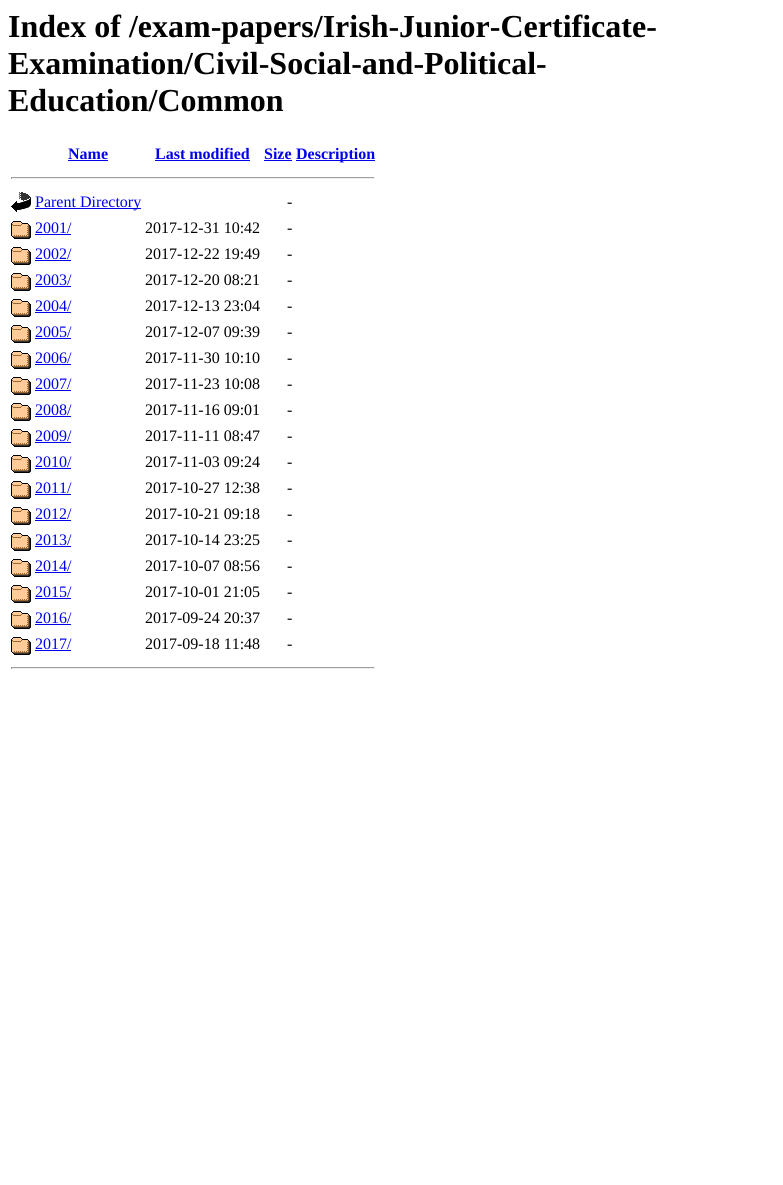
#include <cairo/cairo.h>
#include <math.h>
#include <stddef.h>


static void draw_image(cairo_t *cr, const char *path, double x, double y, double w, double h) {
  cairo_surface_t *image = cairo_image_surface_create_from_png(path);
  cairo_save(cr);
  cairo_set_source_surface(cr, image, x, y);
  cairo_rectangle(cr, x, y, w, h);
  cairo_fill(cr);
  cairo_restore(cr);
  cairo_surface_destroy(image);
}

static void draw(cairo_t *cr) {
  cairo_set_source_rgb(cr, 1, 1, 1);
  cairo_paint(cr);
  cairo_set_source_rgb(cr, 0, 0, 238 / 255.0);
  cairo_rectangle(cr, 68, 160, 40, 1);
  cairo_fill(cr);
  cairo_rectangle(cr, 155, 160, 95, 1);
  cairo_fill(cr);
  cairo_rectangle(cr, 264, 160, 28, 1);
  cairo_fill(cr);
  cairo_rectangle(cr, 296, 160, 79, 1);
  cairo_fill(cr);
  cairo_set_source_rgb(cr, 159 / 255.0, 159 / 255.0, 159 / 255.0);
  cairo_rectangle(cr, 11, 177, 364, 1);
  cairo_fill(cr);
  cairo_set_source_rgb(cr, 238 / 255.0, 238 / 255.0, 238 / 255.0);
  cairo_rectangle(cr, 374, 177, 1, 2);
  cairo_fill(cr);
  cairo_rectangle(cr, 11, 178, 364, 1);
  cairo_fill(cr);
  cairo_set_source_rgb(cr, 159 / 255.0, 159 / 255.0, 159 / 255.0);
  cairo_rectangle(cr, 11, 177, 1, 2);
  cairo_fill(cr);
  draw_image(cr, "images/1.png", 11, 192, 20, 20);
  cairo_set_source_rgb(cr, 0, 0, 238 / 255.0);
  cairo_rectangle(cr, 35, 208, 106, 1);
  cairo_fill(cr);
  draw_image(cr, "images/2.png", 11, 221, 20, 18);
  cairo_rectangle(cr, 35, 234, 36, 1);
  cairo_fill(cr);
  draw_image(cr, "images/2.png", 11, 247, 20, 18);
  cairo_rectangle(cr, 35, 260, 36, 1);
  cairo_fill(cr);
  draw_image(cr, "images/2.png", 11, 273, 20, 18);
  cairo_rectangle(cr, 35, 286, 36, 1);
  cairo_fill(cr);
  draw_image(cr, "images/2.png", 11, 299, 20, 18);
  cairo_rectangle(cr, 35, 312, 36, 1);
  cairo_fill(cr);
  draw_image(cr, "images/2.png", 11, 325, 20, 18);
  cairo_rectangle(cr, 35, 338, 36, 1);
  cairo_fill(cr);
  draw_image(cr, "images/2.png", 11, 351, 20, 18);
  cairo_rectangle(cr, 35, 364, 36, 1);
  cairo_fill(cr);
  draw_image(cr, "images/2.png", 11, 377, 20, 18);
  cairo_rectangle(cr, 35, 390, 36, 1);
  cairo_fill(cr);
  draw_image(cr, "images/2.png", 11, 403, 20, 18);
  cairo_rectangle(cr, 35, 416, 36, 1);
  cairo_fill(cr);
  draw_image(cr, "images/2.png", 11, 429, 20, 18);
  cairo_rectangle(cr, 35, 442, 36, 1);
  cairo_fill(cr);
  draw_image(cr, "images/2.png", 11, 455, 20, 18);
  cairo_rectangle(cr, 35, 468, 36, 1);
  cairo_fill(cr);
  draw_image(cr, "images/2.png", 11, 481, 20, 18);
  cairo_rectangle(cr, 35, 494, 36, 1);
  cairo_fill(cr);
  draw_image(cr, "images/2.png", 11, 507, 20, 18);
  cairo_rectangle(cr, 35, 520, 36, 1);
  cairo_fill(cr);
  draw_image(cr, "images/2.png", 11, 533, 20, 18);
  cairo_rectangle(cr, 35, 546, 36, 1);
  cairo_fill(cr);
  draw_image(cr, "images/2.png", 11, 559, 20, 18);
  cairo_rectangle(cr, 35, 572, 36, 1);
  cairo_fill(cr);
  draw_image(cr, "images/2.png", 11, 585, 20, 18);
  cairo_rectangle(cr, 35, 598, 36, 1);
  cairo_fill(cr);
  draw_image(cr, "images/2.png", 11, 611, 20, 18);
  cairo_rectangle(cr, 35, 624, 36, 1);
  cairo_fill(cr);
  draw_image(cr, "images/2.png", 11, 637, 20, 18);
  cairo_rectangle(cr, 35, 650, 36, 1);
  cairo_fill(cr);
  cairo_set_source_rgb(cr, 159 / 255.0, 159 / 255.0, 159 / 255.0);
  cairo_rectangle(cr, 11, 667, 364, 1);
  cairo_fill(cr);
  cairo_set_source_rgb(cr, 238 / 255.0, 238 / 255.0, 238 / 255.0);
  cairo_rectangle(cr, 374, 667, 1, 2);
  cairo_fill(cr);
  cairo_rectangle(cr, 11, 668, 364, 1);
  cairo_fill(cr);
  cairo_set_source_rgb(cr, 159 / 255.0, 159 / 255.0, 159 / 255.0);
  cairo_rectangle(cr, 11, 667, 1, 2);
  cairo_fill(cr);
  cairo_select_font_face(cr, "Liberation Serif", CAIRO_FONT_SLANT_NORMAL, CAIRO_FONT_WEIGHT_BOLD);
  cairo_set_font_size(cr, 32);
  cairo_set_source_rgb(cr, 0, 0, 0);
  cairo_move_to(cr, 8, 37);
  cairo_show_text(cr, "Index of /exam-papers/Irish-Junior-Certificate-");
  cairo_move_to(cr, 8, 74);
  cairo_show_text(cr, "Examination/Civil-Social-and-Political-");
  cairo_move_to(cr, 8, 111);
  cairo_show_text(cr, "Education/Common");
  cairo_set_font_size(cr, 16);
  cairo_set_source_rgb(cr, 0, 0, 238 / 255.0);
  cairo_move_to(cr, 68, 159);
  cairo_show_text(cr, "Name");
  cairo_move_to(cr, 155, 159);
  cairo_show_text(cr, "Last modified");
  cairo_move_to(cr, 264, 159);
  cairo_show_text(cr, "Size");
  cairo_move_to(cr, 296, 159);
  cairo_show_text(cr, "Description");
  cairo_select_font_face(cr, "Liberation Serif", CAIRO_FONT_SLANT_NORMAL, CAIRO_FONT_WEIGHT_NORMAL);
  cairo_move_to(cr, 35, 207);
  cairo_show_text(cr, "Parent Directory");
  cairo_set_source_rgb(cr, 0, 0, 0);
  cairo_move_to(cr, 287, 207);
  cairo_show_text(cr, "-");
  cairo_set_source_rgb(cr, 0, 0, 238 / 255.0);
  cairo_move_to(cr, 35, 233);
  cairo_show_text(cr, "2001/");
  cairo_set_source_rgb(cr, 0, 0, 0);
  cairo_move_to(cr, 145, 233);
  cairo_show_text(cr, "2017-12-31 10:42");
  cairo_move_to(cr, 287, 233);
  cairo_show_text(cr, "-");
  cairo_set_source_rgb(cr, 0, 0, 238 / 255.0);
  cairo_move_to(cr, 35, 259);
  cairo_show_text(cr, "2002/");
  cairo_set_source_rgb(cr, 0, 0, 0);
  cairo_move_to(cr, 145, 259);
  cairo_show_text(cr, "2017-12-22 19:49");
  cairo_move_to(cr, 287, 259);
  cairo_show_text(cr, "-");
  cairo_set_source_rgb(cr, 0, 0, 238 / 255.0);
  cairo_move_to(cr, 35, 285);
  cairo_show_text(cr, "2003/");
  cairo_set_source_rgb(cr, 0, 0, 0);
  cairo_move_to(cr, 145, 285);
  cairo_show_text(cr, "2017-12-20 08:21");
  cairo_move_to(cr, 287, 285);
  cairo_show_text(cr, "-");
  cairo_set_source_rgb(cr, 0, 0, 238 / 255.0);
  cairo_move_to(cr, 35, 311);
  cairo_show_text(cr, "2004/");
  cairo_set_source_rgb(cr, 0, 0, 0);
  cairo_move_to(cr, 145, 311);
  cairo_show_text(cr, "2017-12-13 23:04");
  cairo_move_to(cr, 287, 311);
  cairo_show_text(cr, "-");
  cairo_set_source_rgb(cr, 0, 0, 238 / 255.0);
  cairo_move_to(cr, 35, 337);
  cairo_show_text(cr, "2005/");
  cairo_set_source_rgb(cr, 0, 0, 0);
  cairo_move_to(cr, 145, 337);
  cairo_show_text(cr, "2017-12-07 09:39");
  cairo_move_to(cr, 287, 337);
  cairo_show_text(cr, "-");
  cairo_set_source_rgb(cr, 0, 0, 238 / 255.0);
  cairo_move_to(cr, 35, 363);
  cairo_show_text(cr, "2006/");
  cairo_set_source_rgb(cr, 0, 0, 0);
  cairo_move_to(cr, 145, 363);
  cairo_show_text(cr, "2017-11-30 10:10");
  cairo_move_to(cr, 287, 363);
  cairo_show_text(cr, "-");
  cairo_set_source_rgb(cr, 0, 0, 238 / 255.0);
  cairo_move_to(cr, 35, 389);
  cairo_show_text(cr, "2007/");
  cairo_set_source_rgb(cr, 0, 0, 0);
  cairo_move_to(cr, 145, 389);
  cairo_show_text(cr, "2017-11-23 10:08");
  cairo_move_to(cr, 287, 389);
  cairo_show_text(cr, "-");
  cairo_set_source_rgb(cr, 0, 0, 238 / 255.0);
  cairo_move_to(cr, 35, 415);
  cairo_show_text(cr, "2008/");
  cairo_set_source_rgb(cr, 0, 0, 0);
  cairo_move_to(cr, 145, 415);
  cairo_show_text(cr, "2017-11-16 09:01");
  cairo_move_to(cr, 287, 415);
  cairo_show_text(cr, "-");
  cairo_set_source_rgb(cr, 0, 0, 238 / 255.0);
  cairo_move_to(cr, 35, 441);
  cairo_show_text(cr, "2009/");
  cairo_set_source_rgb(cr, 0, 0, 0);
  cairo_move_to(cr, 145, 441);
  cairo_show_text(cr, "2017-11-11 08:47");
  cairo_move_to(cr, 287, 441);
  cairo_show_text(cr, "-");
  cairo_set_source_rgb(cr, 0, 0, 238 / 255.0);
  cairo_move_to(cr, 35, 467);
  cairo_show_text(cr, "2010/");
  cairo_set_source_rgb(cr, 0, 0, 0);
  cairo_move_to(cr, 145, 467);
  cairo_show_text(cr, "2017-11-03 09:24");
  cairo_move_to(cr, 287, 467);
  cairo_show_text(cr, "-");
  cairo_set_source_rgb(cr, 0, 0, 238 / 255.0);
  cairo_move_to(cr, 35, 493);
  cairo_show_text(cr, "2011/");
  cairo_set_source_rgb(cr, 0, 0, 0);
  cairo_move_to(cr, 145, 493);
  cairo_show_text(cr, "2017-10-27 12:38");
  cairo_move_to(cr, 287, 493);
  cairo_show_text(cr, "-");
  cairo_set_source_rgb(cr, 0, 0, 238 / 255.0);
  cairo_move_to(cr, 35, 519);
  cairo_show_text(cr, "2012/");
  cairo_set_source_rgb(cr, 0, 0, 0);
  cairo_move_to(cr, 145, 519);
  cairo_show_text(cr, "2017-10-21 09:18");
  cairo_move_to(cr, 287, 519);
  cairo_show_text(cr, "-");
  cairo_set_source_rgb(cr, 0, 0, 238 / 255.0);
  cairo_move_to(cr, 35, 545);
  cairo_show_text(cr, "2013/");
  cairo_set_source_rgb(cr, 0, 0, 0);
  cairo_move_to(cr, 145, 545);
  cairo_show_text(cr, "2017-10-14 23:25");
  cairo_move_to(cr, 287, 545);
  cairo_show_text(cr, "-");
  cairo_set_source_rgb(cr, 0, 0, 238 / 255.0);
  cairo_move_to(cr, 35, 571);
  cairo_show_text(cr, "2014/");
  cairo_set_source_rgb(cr, 0, 0, 0);
  cairo_move_to(cr, 145, 571);
  cairo_show_text(cr, "2017-10-07 08:56");
  cairo_move_to(cr, 287, 571);
  cairo_show_text(cr, "-");
  cairo_set_source_rgb(cr, 0, 0, 238 / 255.0);
  cairo_move_to(cr, 35, 597);
  cairo_show_text(cr, "2015/");
  cairo_set_source_rgb(cr, 0, 0, 0);
  cairo_move_to(cr, 145, 597);
  cairo_show_text(cr, "2017-10-01 21:05");
  cairo_move_to(cr, 287, 597);
  cairo_show_text(cr, "-");
  cairo_set_source_rgb(cr, 0, 0, 238 / 255.0);
  cairo_move_to(cr, 35, 623);
  cairo_show_text(cr, "2016/");
  cairo_set_source_rgb(cr, 0, 0, 0);
  cairo_move_to(cr, 145, 623);
  cairo_show_text(cr, "2017-09-24 20:37");
  cairo_move_to(cr, 287, 623);
  cairo_show_text(cr, "-");
  cairo_set_source_rgb(cr, 0, 0, 238 / 255.0);
  cairo_move_to(cr, 35, 649);
  cairo_show_text(cr, "2017/");
  cairo_set_source_rgb(cr, 0, 0, 0);
  cairo_move_to(cr, 145, 649);
  cairo_show_text(cr, "2017-09-18 11:48");
  cairo_move_to(cr, 287, 649);
  cairo_show_text(cr, "-");
}

int main(void) {
  cairo_surface_t *surface = cairo_image_surface_create(CAIRO_FORMAT_RGB24, 783, 1185);
  cairo_t *cr = cairo_create(surface);
  cairo_font_options_t *options = cairo_font_options_create();
  cairo_font_options_set_hint_metrics(options, CAIRO_HINT_METRICS_OFF);
  cairo_font_options_set_hint_style(options, CAIRO_HINT_STYLE_NONE);
  cairo_set_font_options(cr, options);
  cairo_set_miter_limit(cr, 4);
  draw(cr);
  cairo_surface_write_to_png(surface, "out.png");
  cairo_font_options_destroy(options);
  cairo_destroy(cr);
  cairo_surface_destroy(surface);
  return 0;
}
